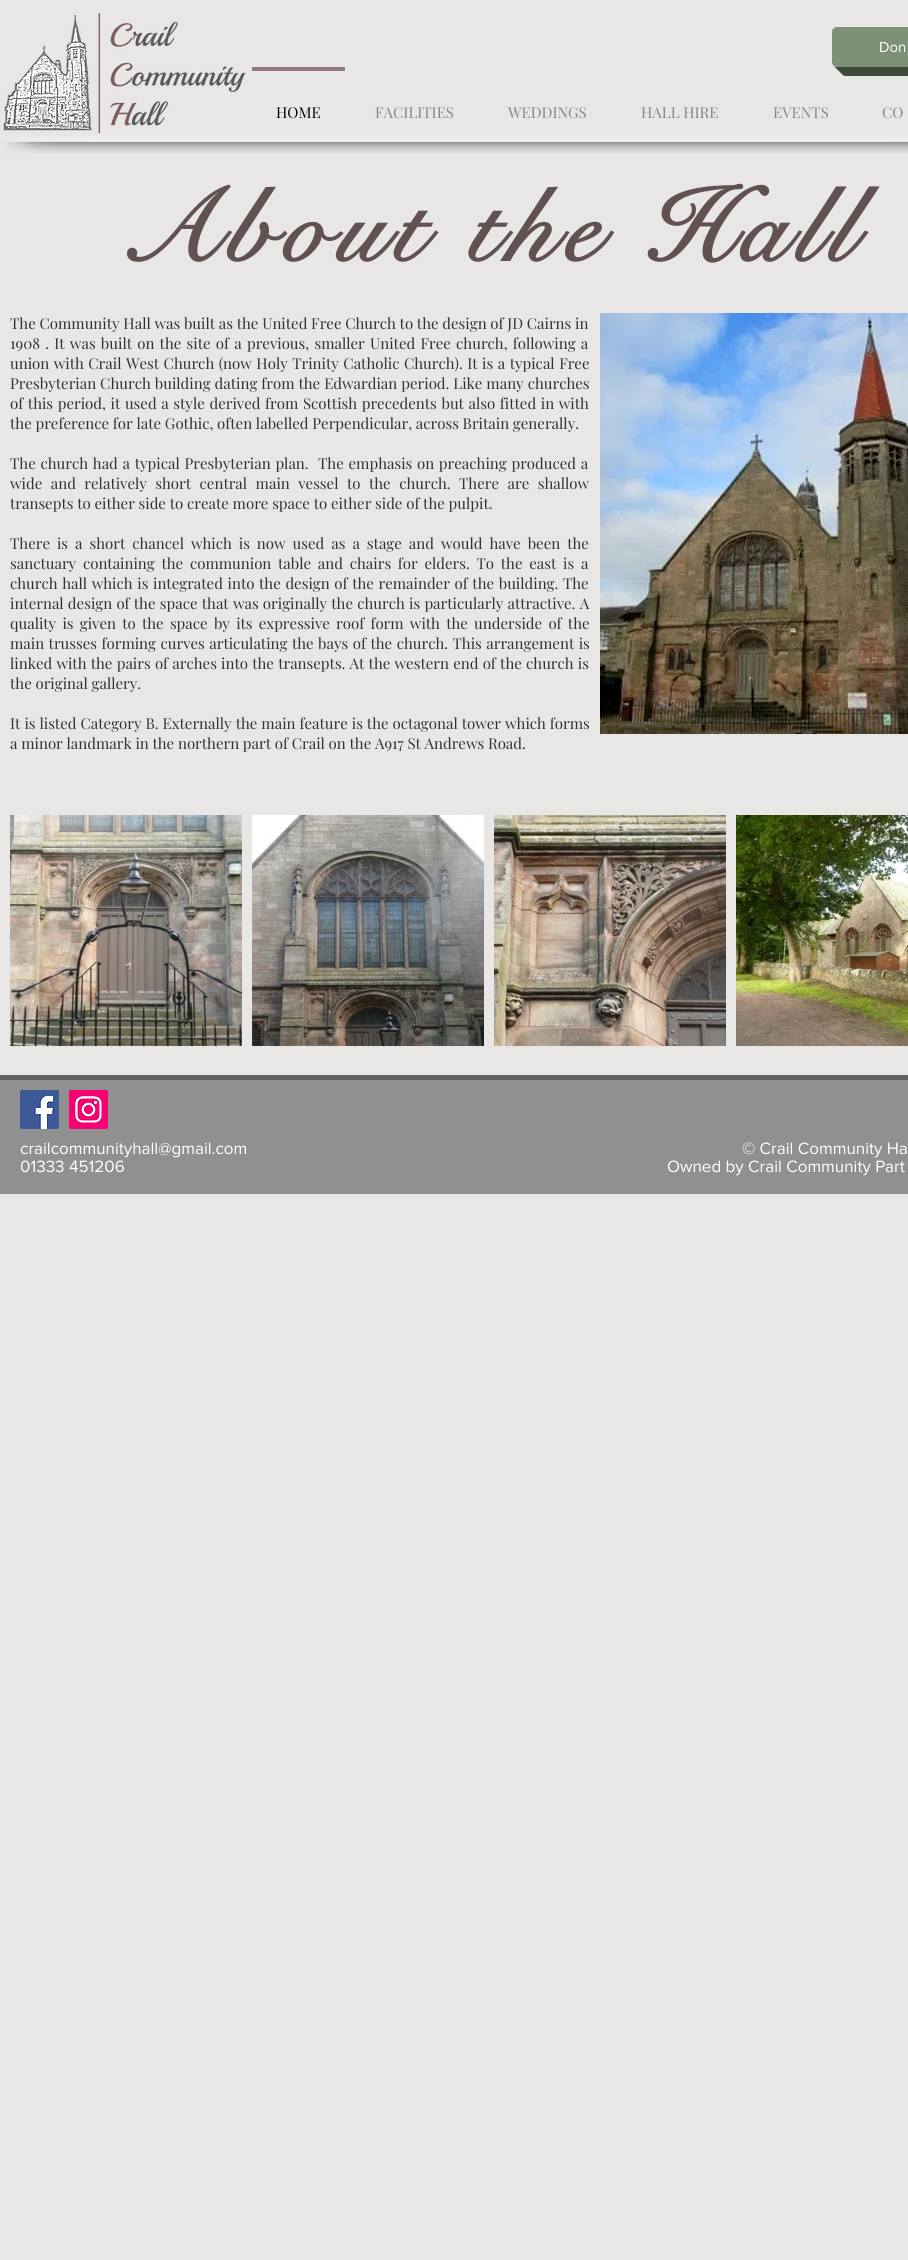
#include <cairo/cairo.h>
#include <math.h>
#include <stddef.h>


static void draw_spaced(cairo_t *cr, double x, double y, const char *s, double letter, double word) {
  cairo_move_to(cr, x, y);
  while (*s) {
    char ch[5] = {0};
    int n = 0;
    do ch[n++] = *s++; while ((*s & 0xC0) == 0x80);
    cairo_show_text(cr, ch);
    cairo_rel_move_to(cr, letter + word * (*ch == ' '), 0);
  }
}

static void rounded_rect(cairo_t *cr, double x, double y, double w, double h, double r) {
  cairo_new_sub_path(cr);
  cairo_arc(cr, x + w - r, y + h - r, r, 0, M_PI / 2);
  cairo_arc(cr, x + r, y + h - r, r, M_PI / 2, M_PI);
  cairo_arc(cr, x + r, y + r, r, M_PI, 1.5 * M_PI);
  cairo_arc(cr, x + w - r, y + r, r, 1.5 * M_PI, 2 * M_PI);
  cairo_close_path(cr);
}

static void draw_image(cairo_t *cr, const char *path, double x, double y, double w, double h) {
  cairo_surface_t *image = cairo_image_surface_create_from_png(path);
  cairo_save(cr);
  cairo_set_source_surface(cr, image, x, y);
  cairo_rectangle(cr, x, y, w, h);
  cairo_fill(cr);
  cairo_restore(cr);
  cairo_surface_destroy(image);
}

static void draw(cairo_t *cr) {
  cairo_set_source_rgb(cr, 232 / 255.0, 231 / 255.0, 230 / 255.0);
  cairo_paint(cr);
  draw_image(cr, "images/1.png", 3, 13, 243, 120);
  cairo_set_source_rgb(cr, 63 / 255.0, 73 / 255.0, 58 / 255.0);
  cairo_new_path(cr);
  cairo_move_to(cr, 841, 67);
  cairo_line_to(cr, 841, 71);
  cairo_curve_to(cr, 841, 74, 843, 76, 846, 76);
  cairo_line_to(cr, 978, 76);
  cairo_curve_to(cr, 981, 76, 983, 74, 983, 71);
  cairo_line_to(cr, 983, 41);
  cairo_curve_to(cr, 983, 38, 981, 36, 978, 36);
  cairo_line_to(cr, 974, 36);
  cairo_line_to(cr, 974, 62);
  cairo_curve_to(cr, 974, 65, 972, 67, 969, 67);
  cairo_close_path(cr);
  cairo_fill(cr);
  cairo_new_path(cr);
  cairo_move_to(cr, 839, 67);
  cairo_line_to(cr, 839, 69);
  cairo_curve_to(cr, 839, 72, 841, 74, 844, 74);
  cairo_line_to(cr, 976, 74);
  cairo_curve_to(cr, 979, 74, 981, 72, 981, 69);
  cairo_line_to(cr, 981, 39);
  cairo_curve_to(cr, 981, 36, 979, 34, 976, 34);
  cairo_line_to(cr, 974, 34);
  cairo_line_to(cr, 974, 62);
  cairo_curve_to(cr, 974, 65, 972, 67, 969, 67);
  cairo_close_path(cr);
  cairo_fill(cr);
  cairo_new_path(cr);
  cairo_move_to(cr, 837, 67);
  cairo_curve_to(cr, 837, 70, 839, 72, 842, 72);
  cairo_line_to(cr, 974, 72);
  cairo_curve_to(cr, 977, 72, 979, 70, 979, 67);
  cairo_line_to(cr, 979, 37);
  cairo_curve_to(cr, 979, 34, 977, 32, 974, 32);
  cairo_line_to(cr, 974, 62);
  cairo_curve_to(cr, 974, 65, 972, 67, 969, 67);
  cairo_close_path(cr);
  cairo_fill(cr);
  cairo_new_path(cr);
  cairo_move_to(cr, 835, 67);
  cairo_curve_to(cr, 836, 69, 838, 70, 840, 70);
  cairo_line_to(cr, 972, 70);
  cairo_curve_to(cr, 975, 70, 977, 68, 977, 65);
  cairo_line_to(cr, 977, 35);
  cairo_curve_to(cr, 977, 33, 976, 31, 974, 30);
  cairo_line_to(cr, 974, 63);
  cairo_curve_to(cr, 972, 71, 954, 67, 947, 67);
  cairo_close_path(cr);
  cairo_fill(cr);
  cairo_new_path(cr);
  cairo_move_to(cr, 834, 66);
  cairo_curve_to(cr, 835, 67, 836, 68, 838, 68);
  cairo_line_to(cr, 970, 68);
  cairo_curve_to(cr, 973, 68, 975, 66, 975, 63);
  cairo_line_to(cr, 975, 33);
  cairo_curve_to(cr, 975, 31, 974, 30, 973, 29);
  cairo_curve_to(cr, 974, 30, 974, 31, 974, 32);
  cairo_line_to(cr, 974, 62);
  cairo_curve_to(cr, 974, 65, 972, 67, 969, 67);
  cairo_line_to(cr, 837, 67);
  cairo_curve_to(cr, 836, 67, 835, 67, 834, 66);
  cairo_close_path(cr);
  cairo_fill(cr);
  cairo_set_source_rgb(cr, 125 / 255.0, 145 / 255.0, 116 / 255.0);
  rounded_rect(cr, 832, 27, 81, 40, 5);
  cairo_fill(cr);
  cairo_set_source_rgb(cr, 147 / 255.0, 121 / 255.0, 122 / 255.0);
  cairo_rectangle(cr, 252, 67, 93, 4);
  cairo_fill(cr);
  draw_image(cr, "images/2.png", 3, 136, 97, 17);
  draw_image(cr, "images/3.png", 100, 136, 780, 17);
  draw_image(cr, "images/4.png", 880, 136, 28, 17);
  draw_image(cr, "images/5.png", 600, 313, 308, 421);
  draw_image(cr, "images/6.png", 10, 815, 232, 231);
  draw_image(cr, "images/7.png", 252, 815, 232, 231);
  draw_image(cr, "images/8.png", 494, 815, 232, 231);
  draw_image(cr, "images/9.png", 736, 815, 172, 231);
  cairo_set_source_rgb(cr, 144 / 255.0, 144 / 255.0, 144 / 255.0);
  cairo_rectangle(cr, 0, 1080, 908, 114);
  cairo_fill(cr);
  cairo_set_source_rgb(cr, 96 / 255.0, 96 / 255.0, 96 / 255.0);
  cairo_rectangle(cr, 0, 1075, 908, 5);
  cairo_fill(cr);
  draw_image(cr, "images/10.png", 20, 1090, 39, 39);
  draw_image(cr, "images/11.png", 69, 1090, 39, 39);
  cairo_select_font_face(cr, "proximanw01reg", CAIRO_FONT_SLANT_NORMAL, CAIRO_FONT_WEIGHT_NORMAL);
  cairo_set_font_size(cr, 15);
  cairo_set_source_rgb(cr, 1, 1, 1);
  cairo_move_to(cr, 879, 52);
  cairo_show_text(cr, "Don");
  cairo_select_font_face(cr, "Playfair Display", CAIRO_FONT_SLANT_NORMAL, CAIRO_FONT_WEIGHT_NORMAL);
  cairo_set_source_rgb(cr, 0, 0, 0);
  cairo_move_to(cr, 276, 118);
  cairo_show_text(cr, "HOME");
  cairo_set_source_rgb(cr, 133 / 255.0, 133 / 255.0, 133 / 255.0);
  cairo_move_to(cr, 375, 118);
  cairo_show_text(cr, "FACILITIES");
  cairo_move_to(cr, 508, 118);
  cairo_show_text(cr, "WEDDINGS");
  cairo_move_to(cr, 641, 118);
  cairo_show_text(cr, "HALL HIRE");
  cairo_move_to(cr, 773, 118);
  cairo_show_text(cr, "EVENTS");
  cairo_move_to(cr, 882, 118);
  cairo_show_text(cr, "CO");
  cairo_select_font_face(cr, "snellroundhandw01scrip", CAIRO_FONT_SLANT_NORMAL, CAIRO_FONT_WEIGHT_BOLD);
  cairo_set_font_size(cr, 103);
  cairo_set_source_rgb(cr, 98 / 255.0, 81 / 255.0, 81 / 255.0);
  draw_spaced(cr, 118, 261, "About the Hall", 10.25, 0);
  cairo_select_font_face(cr, "Playfair Display", CAIRO_FONT_SLANT_NORMAL, CAIRO_FONT_WEIGHT_NORMAL);
  cairo_set_font_size(cr, 15);
  cairo_set_source_rgb(cr, 48 / 255.0, 48 / 255.0, 48 / 255.0);
  cairo_move_to(cr, 10, 329);
  cairo_show_text(cr, "The Community Hall was built as the United Free Church to the design of JD Cairns in");
  draw_spaced(cr, 10, 349, "1908 . It was built on the site of a previous, smaller United Free church, following a", 0, 1.5);
  draw_spaced(cr, 10, 369, "union with Crail West Church (now Holy Trinity Catholic Church). It is a typical Free", 0, 0.75);
  draw_spaced(cr, 10, 389, "Presbyterian Church building dating from the Edwardian period. Like many churches", 0, 0.25);
  draw_spaced(cr, 10, 409, "of this period, it used a style derived from Scottish precedents but also fitted in with", 0, 0.9);
  cairo_move_to(cr, 10, 429);
  cairo_show_text(cr, "the preference for late Gothic, often labelled Perpendicular, across Britain generally.");
  draw_spaced(cr, 10, 469, "The church had a typical Presbyterian plan.  The emphasis on preaching produced a", 0, 1);
  draw_spaced(cr, 10, 489, "wide and relatively short central main vessel to the church. There are shallow", 0, 4.75);
  cairo_move_to(cr, 10, 509);
  cairo_show_text(cr, "transepts to either side to create more space to either side of the pulpit.");
  draw_spaced(cr, 10, 549, "There is a short chancel which is now used as a stage and would have been the", 0, 3.25);
  draw_spaced(cr, 10, 569, "sanctuary containing the communion table and chairs for elders. To the east is a", 0, 3);
  draw_spaced(cr, 10, 589, "church hall which is integrated into the design of the remainder of the building. The", 0, 0.9);
  draw_spaced(cr, 10, 609, "internal design of the space that was originally the church is particularly attractive. A", 0, 0.5);
  draw_spaced(cr, 10, 629, "quality is given to the space by its expressive roof form with the underside of the", 0, 2.5);
  draw_spaced(cr, 10, 649, "main trusses forming curves articulating the bays of the church. This arrangement is", 0, 0.75);
  draw_spaced(cr, 10, 669, "linked with the pairs of arches into the transepts. At the western end of the church is", 0, 0.5);
  cairo_move_to(cr, 10, 689);
  cairo_show_text(cr, "the original gallery.");
  draw_spaced(cr, 10, 729, "It is listed Category B. Externally the main feature is the octagonal tower which forms", 0, 0.25);
  cairo_move_to(cr, 10, 749);
  cairo_show_text(cr, "a minor landmark in the northern part of Crail on the A917 St Andrews Road.");
  cairo_select_font_face(cr, "proximanw01reg", CAIRO_FONT_SLANT_NORMAL, CAIRO_FONT_WEIGHT_NORMAL);
  cairo_set_font_size(cr, 17);
  cairo_set_source_rgb(cr, 1, 1, 1);
  cairo_move_to(cr, 20, 1154);
  cairo_show_text(cr, "crailcommunityhall@gmail.com");
  cairo_move_to(cr, 20, 1172);
  cairo_show_text(cr, "01333 451206");
  cairo_move_to(cr, 742, 1154);
  cairo_show_text(cr, "© Crail Community Ha");
  cairo_move_to(cr, 667, 1172);
  cairo_show_text(cr, "Owned by Crail Community Part");
}

int main(void) {
  cairo_surface_t *surface = cairo_image_surface_create(CAIRO_FORMAT_RGB24, 908, 2260);
  cairo_t *cr = cairo_create(surface);
  cairo_font_options_t *options = cairo_font_options_create();
  cairo_font_options_set_hint_metrics(options, CAIRO_HINT_METRICS_OFF);
  cairo_font_options_set_hint_style(options, CAIRO_HINT_STYLE_NONE);
  cairo_set_font_options(cr, options);
  cairo_set_miter_limit(cr, 4);
  draw(cr);
  cairo_surface_write_to_png(surface, "out.png");
  cairo_font_options_destroy(options);
  cairo_destroy(cr);
  cairo_surface_destroy(surface);
  return 0;
}
